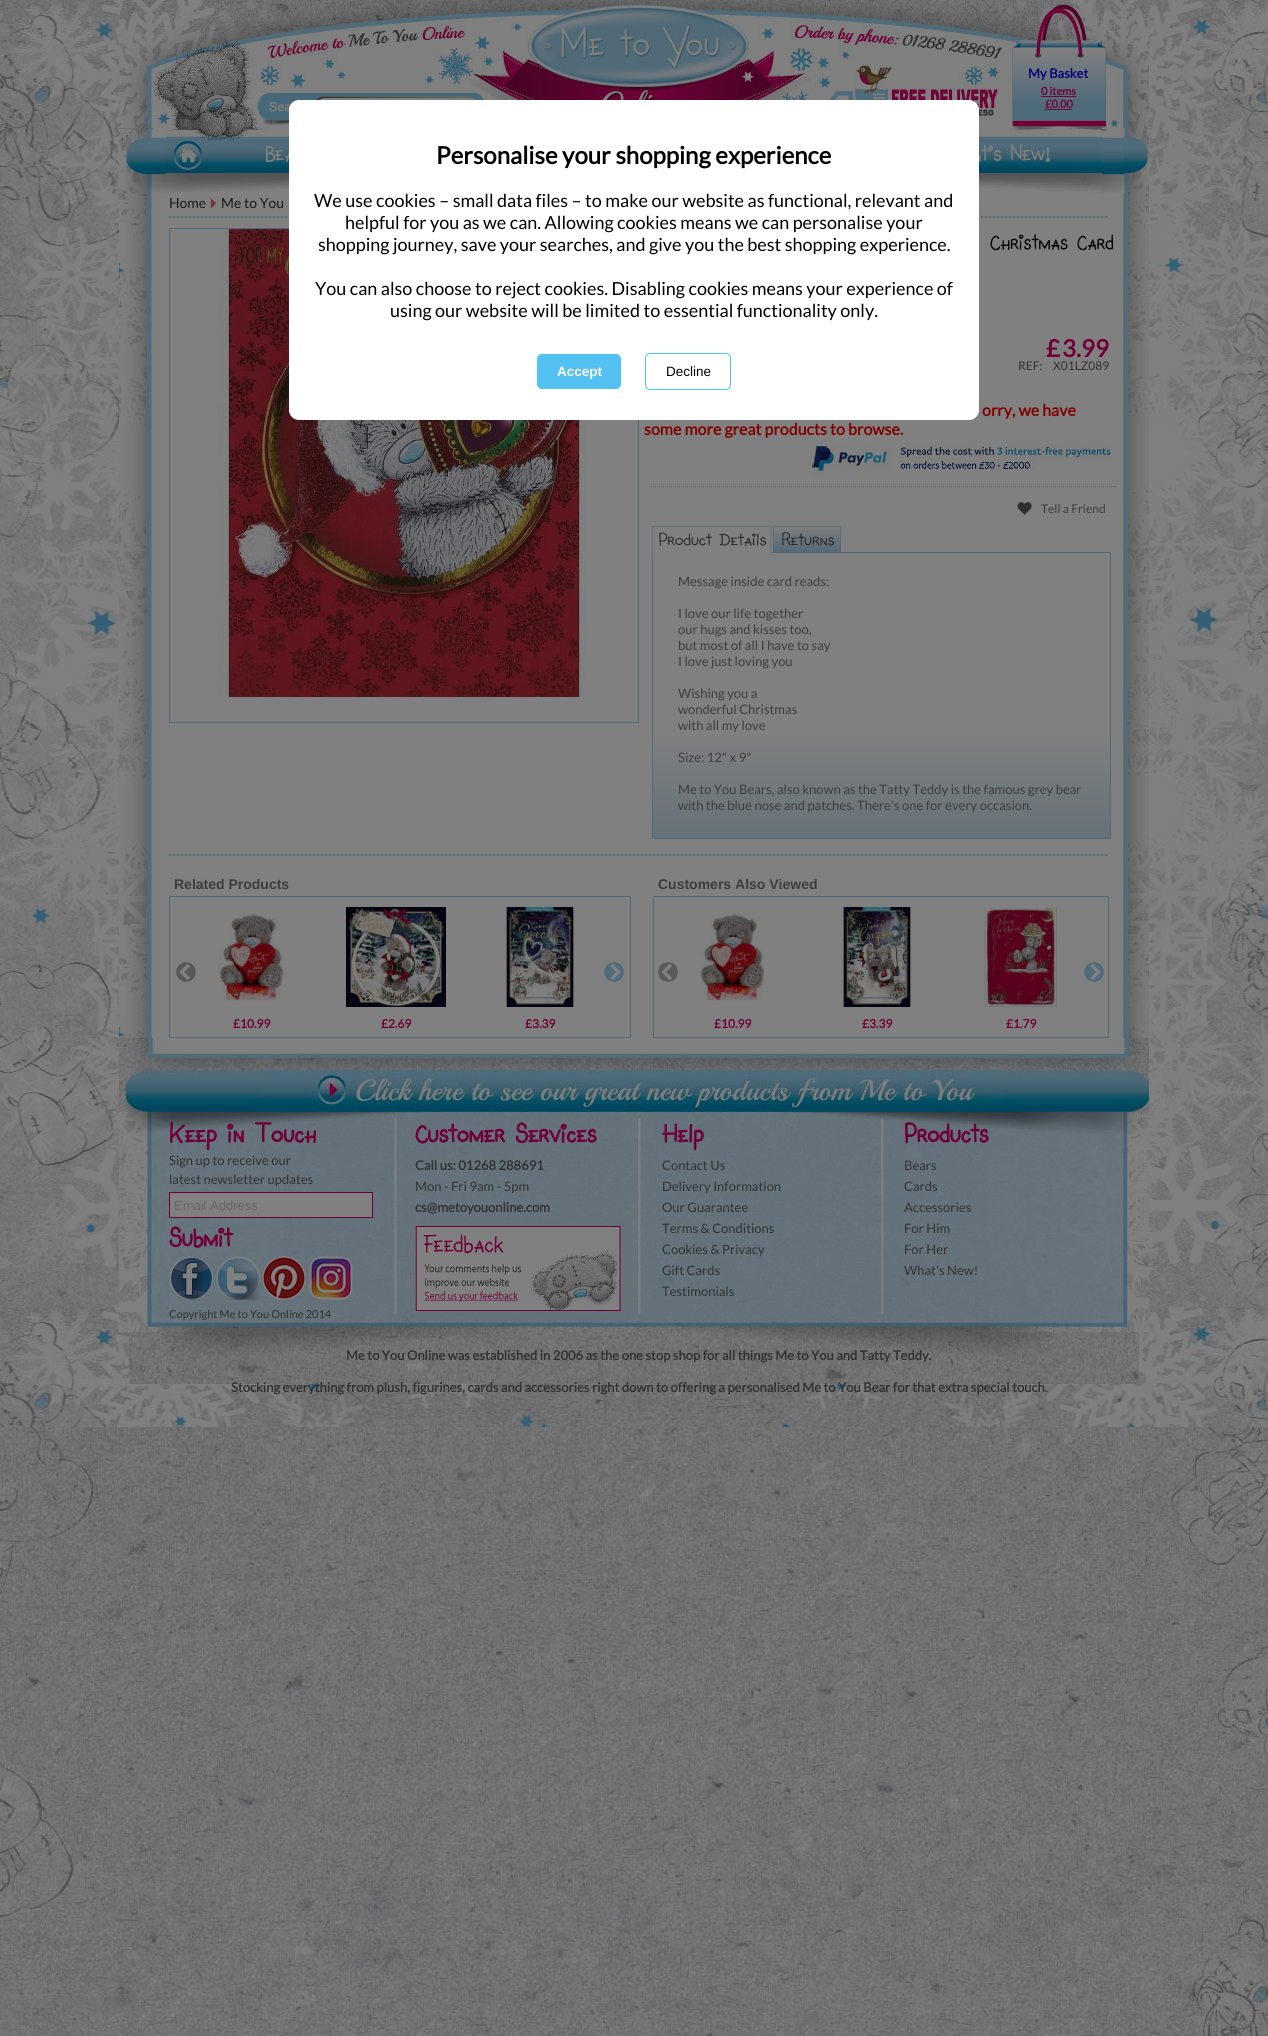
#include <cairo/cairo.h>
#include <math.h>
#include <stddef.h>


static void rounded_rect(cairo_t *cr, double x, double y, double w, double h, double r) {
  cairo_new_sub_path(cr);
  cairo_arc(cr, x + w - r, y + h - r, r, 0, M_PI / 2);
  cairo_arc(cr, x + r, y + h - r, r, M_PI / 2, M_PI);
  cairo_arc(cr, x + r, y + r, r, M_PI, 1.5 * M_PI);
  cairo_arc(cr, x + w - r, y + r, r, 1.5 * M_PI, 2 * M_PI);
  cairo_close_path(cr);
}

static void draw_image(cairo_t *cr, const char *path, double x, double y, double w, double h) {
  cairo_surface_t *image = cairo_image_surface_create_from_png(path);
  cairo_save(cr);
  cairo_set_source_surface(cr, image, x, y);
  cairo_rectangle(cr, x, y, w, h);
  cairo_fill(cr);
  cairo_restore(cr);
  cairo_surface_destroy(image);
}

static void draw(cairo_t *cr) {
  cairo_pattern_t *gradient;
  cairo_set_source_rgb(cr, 1, 1, 1);
  cairo_paint(cr);
  draw_image(cr, "images/1.png", 0, 1427, 1268, 609);
  draw_image(cr, "images/2.png", 0, 0, 1268, 1427);
  draw_image(cr, "images/3.png", 119, 0, 146, 128);
  draw_image(cr, "images/4.png", 265, 0, 222, 128);
  draw_image(cr, "images/5.png", 487, 0, 525, 128);
  draw_image(cr, "images/6.png", 1012, 0, 137, 128);
  cairo_set_source_rgb(cr, 111 / 255.0, 4 / 255.0, 56 / 255.0);
  cairo_rectangle(cr, 1041, 96, 35, 1);
  cairo_fill(cr);
  cairo_rectangle(cr, 1045, 109, 27, 1);
  cairo_fill(cr);
  cairo_set_source_rgb(cr, 128 / 255.0, 128 / 255.0, 128 / 255.0);
  cairo_rectangle(cr, 223, 191, 66, 3);
  cairo_fill(cr);
  draw_image(cr, "images/7.png", 119, 128, 47, 66);
  draw_image(cr, "images/8.png", 166, 128, 57, 66);
  draw_image(cr, "images/9.png", 223, 128, 66, 63);
  draw_image(cr, "images/10.png", 979, 128, 170, 66);
  draw_image(cr, "images/11.png", 119, 194, 1030, 844);
  cairo_new_path(cr);
  cairo_move_to(cr, 169, 217);
  cairo_line_to(cr, 1109, 217);
  cairo_set_source_rgb(cr, 79 / 255.0, 107 / 255.0, 123 / 255.0);
  cairo_set_dash(cr, (double[]){2, 2}, 2, 0);
  cairo_stroke(cr);
  draw_image(cr, "images/12.png", 209, 197, 8, 11);
  cairo_rectangle(cr, 169.5, 228.5, 469, 494);
  cairo_set_line_width(cr, 1);
  cairo_set_dash(cr, NULL, 0, 0);
  cairo_stroke(cr);
  draw_image(cr, "images/13.png", 218, 229, 368, 468);
  draw_image(cr, "images/14.png", 811, 446, 300, 30);
  cairo_new_path(cr);
  cairo_move_to(cr, 649, 486.5);
  cairo_line_to(cr, 1117, 486.5);
  cairo_set_dash(cr, (double[]){1, 1}, 2, 0);
  cairo_stroke(cr);
  draw_image(cr, "images/15.png", 1017, 501, 15, 15);
  gradient = cairo_pattern_create_linear(882, 553, 882, 838);
  cairo_pattern_add_color_stop_rgba(gradient, 0, 128 / 255.0, 128 / 255.0, 128 / 255.0, 1);
  cairo_pattern_add_color_stop_rgba(gradient, 0.61, 128 / 255.0, 128 / 255.0, 128 / 255.0, 1);
  cairo_pattern_add_color_stop_rgba(gradient, 1, 102 / 255.0, 114 / 255.0, 121 / 255.0, 1);
  cairo_set_source(cr, gradient);
  cairo_pattern_destroy(gradient);
  cairo_rectangle(cr, 653, 738, 457, 100);
  cairo_fill(cr);
  cairo_rectangle(cr, 652.5, 552.5, 458, 286);
  cairo_set_source_rgb(cr, 79 / 255.0, 107 / 255.0, 123 / 255.0);
  cairo_set_dash(cr, NULL, 0, 0);
  cairo_stroke(cr);
  draw_image(cr, "images/16.png", 652, 526, 120, 27);
  draw_image(cr, "images/17.png", 773, 526, 68, 27);
  cairo_new_path(cr);
  cairo_move_to(cr, 169, 855);
  cairo_line_to(cr, 1109, 855);
  cairo_set_line_width(cr, 2);
  cairo_set_dash(cr, (double[]){2, 2}, 2, 0);
  cairo_stroke(cr);
  cairo_rectangle(cr, 169, 896, 462, 1);
  cairo_fill(cr);
  cairo_rectangle(cr, 630, 897, 1, 141);
  cairo_fill(cr);
  cairo_rectangle(cr, 169, 1037, 462, 1);
  cairo_fill(cr);
  cairo_rectangle(cr, 169, 897, 1, 141);
  cairo_fill(cr);
  draw_image(cr, "images/18.png", 176, 962, 20, 20);
  draw_image(cr, "images/19.png", 604, 962, 20, 20);
  draw_image(cr, "images/20.png", 219, 913, 65, 88);
  draw_image(cr, "images/21.png", 346, 907, 100, 100);
  draw_image(cr, "images/22.png", 504, 907, 71, 100);
  cairo_rectangle(cr, 653, 896, 456, 1);
  cairo_fill(cr);
  cairo_rectangle(cr, 1108, 897, 1, 141);
  cairo_fill(cr);
  cairo_rectangle(cr, 653, 1037, 456, 1);
  cairo_fill(cr);
  cairo_rectangle(cr, 653, 897, 1, 141);
  cairo_fill(cr);
  draw_image(cr, "images/18.png", 658, 962, 20, 20);
  draw_image(cr, "images/19.png", 1084, 962, 20, 20);
  draw_image(cr, "images/20.png", 700, 913, 65, 88);
  draw_image(cr, "images/23.png", 841, 907, 71, 100);
  draw_image(cr, "images/24.png", 984, 907, 73, 100);
  draw_image(cr, "images/25.png", 119, 1038, 1030, 28);
  draw_image(cr, "images/26.png", 119, 1066, 1030, 46);
  draw_image(cr, "images/27.png", 119, 1112, 1030, 220);
  cairo_set_source_rgb(cr, 128 / 255.0, 128 / 255.0, 128 / 255.0);
  cairo_rectangle(cr, 169.5, 1192.5, 203, 25);
  cairo_fill_preserve(cr);
  cairo_set_source_rgb(cr, 111 / 255.0, 0, 55 / 255.0);
  cairo_set_line_width(cr, 1);
  cairo_set_dash(cr, NULL, 0, 0);
  cairo_stroke(cr);
  draw_image(cr, "images/28.png", 169, 1256, 44, 44);
  draw_image(cr, "images/29.png", 216, 1256, 44, 44);
  draw_image(cr, "images/30.png", 262, 1256, 44, 44);
  draw_image(cr, "images/31.png", 309, 1256, 44, 44);
  draw_image(cr, "images/32.png", 414, 1220, 218, 97);
  draw_image(cr, "images/33.png", 129, 1332, 1010, 52);
  cairo_set_source_rgb(cr, 1, 1, 1);
  rounded_rect(cr, 289, 100, 690, 320, 10);
  cairo_fill(cr);
  cairo_set_source_rgb(cr, 83 / 255.0, 193 / 255.0, 242 / 255.0);
  rounded_rect(cr, 537, 354, 84, 35, 5);
  cairo_fill(cr);
  rounded_rect(cr, 645.5, 353.5, 85, 36, 4.5);
  cairo_stroke(cr);
  cairo_select_font_face(cr, "Lato", CAIRO_FONT_SLANT_NORMAL, CAIRO_FONT_WEIGHT_BOLD);
  cairo_set_font_size(cr, 13);
  cairo_set_source_rgb(cr, 0, 0, 119 / 255.0);
  cairo_move_to(cr, 1028, 78);
  cairo_show_text(cr, "My Basket");
  cairo_set_font_size(cr, 11);
  cairo_set_source_rgb(cr, 111 / 255.0, 0, 55 / 255.0);
  cairo_move_to(cr, 1041, 95);
  cairo_show_text(cr, "0 items");
  cairo_move_to(cr, 1045, 108);
  cairo_show_text(cr, "£0.00");
  cairo_select_font_face(cr, "Lato", CAIRO_FONT_SLANT_NORMAL, CAIRO_FONT_WEIGHT_NORMAL);
  cairo_set_font_size(cr, 14);
  cairo_set_source_rgb(cr, 26 / 255.0, 26 / 255.0, 26 / 255.0);
  cairo_move_to(cr, 169, 208);
  cairo_show_text(cr, "Home");
  cairo_move_to(cr, 221, 208);
  cairo_show_text(cr, "Me to You");
  cairo_select_font_face(cr, "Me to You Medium", CAIRO_FONT_SLANT_NORMAL, CAIRO_FONT_WEIGHT_NORMAL);
  cairo_set_font_size(cr, 24);
  cairo_set_source_rgb(cr, 0, 0, 0);
  cairo_move_to(cr, 990, 249);
  cairo_show_text(cr, "Christmas Card");
  cairo_select_font_face(cr, "Lato", CAIRO_FONT_SLANT_NORMAL, CAIRO_FONT_WEIGHT_BOLD);
  cairo_set_source_rgb(cr, 111 / 255.0, 0, 55 / 255.0);
  cairo_move_to(cr, 1046, 357);
  cairo_show_text(cr, "£");
  cairo_move_to(cr, 1062, 357);
  cairo_show_text(cr, "3.99");
  cairo_select_font_face(cr, "Lato", CAIRO_FONT_SLANT_NORMAL, CAIRO_FONT_WEIGHT_NORMAL);
  cairo_set_font_size(cr, 12);
  cairo_set_source_rgb(cr, 50 / 255.0, 50 / 255.0, 50 / 255.0);
  cairo_move_to(cr, 1018, 370);
  cairo_show_text(cr, "REF:");
  cairo_move_to(cr, 1053, 370);
  cairo_show_text(cr, "X01LZ089");
  cairo_select_font_face(cr, "Lato", CAIRO_FONT_SLANT_NORMAL, CAIRO_FONT_WEIGHT_BOLD);
  cairo_set_font_size(cr, 16);
  cairo_set_source_rgb(cr, 128 / 255.0, 0, 0);
  cairo_move_to(cr, 982, 416);
  cairo_show_text(cr, "orry, we have");
  cairo_move_to(cr, 644, 435);
  cairo_show_text(cr, "some more great products to browse.");
  cairo_select_font_face(cr, "Lato", CAIRO_FONT_SLANT_NORMAL, CAIRO_FONT_WEIGHT_NORMAL);
  cairo_set_font_size(cr, 12);
  cairo_set_source_rgb(cr, 61 / 255.0, 61 / 255.0, 61 / 255.0);
  cairo_move_to(cr, 1041, 513);
  cairo_show_text(cr, "Tell a Friend");
  cairo_set_font_size(cr, 13);
  cairo_move_to(cr, 678, 586);
  cairo_show_text(cr, "Message inside card reads:");
  cairo_move_to(cr, 678, 618);
  cairo_show_text(cr, "I love our life together");
  cairo_move_to(cr, 678, 634);
  cairo_show_text(cr, "our hugs and kisses too,");
  cairo_move_to(cr, 678, 650);
  cairo_show_text(cr, "but most of all I have to say");
  cairo_move_to(cr, 678, 666);
  cairo_show_text(cr, "I love just loving you");
  cairo_move_to(cr, 678, 698);
  cairo_show_text(cr, "Wishing you a");
  cairo_move_to(cr, 678, 714);
  cairo_show_text(cr, "wonderful Christmas");
  cairo_move_to(cr, 678, 730);
  cairo_show_text(cr, "with all my love");
  cairo_move_to(cr, 678, 762);
  cairo_show_text(cr, "Size: 12\" x 9\"");
  cairo_move_to(cr, 678, 794);
  cairo_show_text(cr, "Me to You Bears, also known as the Tatty Teddy is the famous grey bear");
  cairo_move_to(cr, 678, 810);
  cairo_show_text(cr, "with the blue nose and patches. There's one for every occasion.");
  cairo_select_font_face(cr, "Liberation Sans", CAIRO_FONT_SLANT_NORMAL, CAIRO_FONT_WEIGHT_BOLD);
  cairo_set_font_size(cr, 14);
  cairo_move_to(cr, 174, 889);
  cairo_show_text(cr, "Related Products");
  cairo_select_font_face(cr, "Lato", CAIRO_FONT_SLANT_NORMAL, CAIRO_FONT_WEIGHT_BOLD);
  cairo_set_font_size(cr, 12);
  cairo_set_source_rgb(cr, 111 / 255.0, 0, 55 / 255.0);
  cairo_move_to(cr, 233, 1028);
  cairo_show_text(cr, "£10.99");
  cairo_move_to(cr, 381, 1028);
  cairo_show_text(cr, "£2.69");
  cairo_move_to(cr, 525, 1028);
  cairo_show_text(cr, "£3.39");
  cairo_select_font_face(cr, "Liberation Sans", CAIRO_FONT_SLANT_NORMAL, CAIRO_FONT_WEIGHT_BOLD);
  cairo_set_font_size(cr, 14);
  cairo_set_source_rgb(cr, 61 / 255.0, 61 / 255.0, 61 / 255.0);
  cairo_move_to(cr, 658, 889);
  cairo_show_text(cr, "Customers Also Viewed");
  cairo_select_font_face(cr, "Lato", CAIRO_FONT_SLANT_NORMAL, CAIRO_FONT_WEIGHT_BOLD);
  cairo_set_font_size(cr, 12);
  cairo_set_source_rgb(cr, 111 / 255.0, 0, 55 / 255.0);
  cairo_move_to(cr, 714, 1028);
  cairo_show_text(cr, "£10.99");
  cairo_move_to(cr, 862, 1028);
  cairo_show_text(cr, "£3.39");
  cairo_move_to(cr, 1006, 1028);
  cairo_show_text(cr, "£1.79");
  cairo_select_font_face(cr, "Me to You", CAIRO_FONT_SLANT_NORMAL, CAIRO_FONT_WEIGHT_BOLD);
  cairo_set_font_size(cr, 29);
  cairo_move_to(cr, 169, 1142);
  cairo_show_text(cr, "Keep in Touch");
  cairo_select_font_face(cr, "Lato", CAIRO_FONT_SLANT_NORMAL, CAIRO_FONT_WEIGHT_NORMAL);
  cairo_set_font_size(cr, 13);
  cairo_set_source_rgb(cr, 50 / 255.0, 50 / 255.0, 50 / 255.0);
  cairo_move_to(cr, 169, 1165);
  cairo_show_text(cr, "Sign up to receive our");
  cairo_move_to(cr, 169, 1184);
  cairo_show_text(cr, "latest newsletter updates");
  cairo_select_font_face(cr, "Liberation Sans", CAIRO_FONT_SLANT_NORMAL, CAIRO_FONT_WEIGHT_NORMAL);
  cairo_set_source_rgb(cr, 102 / 255.0, 102 / 255.0, 102 / 255.0);
  cairo_move_to(cr, 174, 1210);
  cairo_show_text(cr, "Email Address");
  cairo_select_font_face(cr, "Me to You", CAIRO_FONT_SLANT_NORMAL, CAIRO_FONT_WEIGHT_BOLD);
  cairo_set_font_size(cr, 29);
  cairo_set_source_rgb(cr, 111 / 255.0, 0, 55 / 255.0);
  cairo_move_to(cr, 169, 1246);
  cairo_show_text(cr, "Submit");
  cairo_select_font_face(cr, "Lato", CAIRO_FONT_SLANT_NORMAL, CAIRO_FONT_WEIGHT_NORMAL);
  cairo_set_font_size(cr, 11);
  cairo_set_source_rgb(cr, 50 / 255.0, 50 / 255.0, 50 / 255.0);
  cairo_move_to(cr, 169, 1318);
  cairo_show_text(cr, "Copyright Me to You Online 2014");
  cairo_select_font_face(cr, "Me to You", CAIRO_FONT_SLANT_NORMAL, CAIRO_FONT_WEIGHT_BOLD);
  cairo_set_font_size(cr, 29);
  cairo_set_source_rgb(cr, 111 / 255.0, 0, 55 / 255.0);
  cairo_move_to(cr, 415, 1142);
  cairo_show_text(cr, "Customer Services");
  cairo_select_font_face(cr, "Lato", CAIRO_FONT_SLANT_NORMAL, CAIRO_FONT_WEIGHT_BOLD);
  cairo_set_font_size(cr, 13);
  cairo_set_source_rgb(cr, 50 / 255.0, 50 / 255.0, 50 / 255.0);
  cairo_move_to(cr, 415, 1170);
  cairo_show_text(cr, "Call us: 01268 288691");
  cairo_select_font_face(cr, "Lato", CAIRO_FONT_SLANT_NORMAL, CAIRO_FONT_WEIGHT_NORMAL);
  cairo_move_to(cr, 415, 1191);
  cairo_show_text(cr, "Mon - Fri 9am - 5pm");
  cairo_select_font_face(cr, "Lato", CAIRO_FONT_SLANT_NORMAL, CAIRO_FONT_WEIGHT_BOLD);
  cairo_move_to(cr, 415, 1212);
  cairo_show_text(cr, "cs@metoyouonline.com");
  cairo_select_font_face(cr, "Me to You", CAIRO_FONT_SLANT_NORMAL, CAIRO_FONT_WEIGHT_BOLD);
  cairo_set_font_size(cr, 29);
  cairo_set_source_rgb(cr, 111 / 255.0, 0, 55 / 255.0);
  cairo_move_to(cr, 662, 1142);
  cairo_show_text(cr, "Help");
  cairo_select_font_face(cr, "Lato", CAIRO_FONT_SLANT_NORMAL, CAIRO_FONT_WEIGHT_NORMAL);
  cairo_set_font_size(cr, 13);
  cairo_set_source_rgb(cr, 50 / 255.0, 50 / 255.0, 50 / 255.0);
  cairo_move_to(cr, 662, 1170);
  cairo_show_text(cr, "Contact Us");
  cairo_move_to(cr, 662, 1191);
  cairo_show_text(cr, "Delivery Information");
  cairo_move_to(cr, 662, 1212);
  cairo_show_text(cr, "Our Guarantee");
  cairo_move_to(cr, 662, 1233);
  cairo_show_text(cr, "Terms & Conditions");
  cairo_move_to(cr, 662, 1254);
  cairo_show_text(cr, "Cookies & Privacy");
  cairo_move_to(cr, 662, 1275);
  cairo_show_text(cr, "Gift Cards");
  cairo_move_to(cr, 662, 1296);
  cairo_show_text(cr, "Testimonials");
  cairo_select_font_face(cr, "Me to You", CAIRO_FONT_SLANT_NORMAL, CAIRO_FONT_WEIGHT_BOLD);
  cairo_set_font_size(cr, 29);
  cairo_set_source_rgb(cr, 111 / 255.0, 0, 55 / 255.0);
  cairo_move_to(cr, 904, 1142);
  cairo_show_text(cr, "Products");
  cairo_select_font_face(cr, "Lato", CAIRO_FONT_SLANT_NORMAL, CAIRO_FONT_WEIGHT_NORMAL);
  cairo_set_font_size(cr, 13);
  cairo_set_source_rgb(cr, 50 / 255.0, 50 / 255.0, 50 / 255.0);
  cairo_move_to(cr, 904, 1170);
  cairo_show_text(cr, "Bears");
  cairo_move_to(cr, 904, 1191);
  cairo_show_text(cr, "Cards");
  cairo_move_to(cr, 904, 1212);
  cairo_show_text(cr, "Accessories");
  cairo_move_to(cr, 904, 1233);
  cairo_show_text(cr, "For Him");
  cairo_move_to(cr, 904, 1254);
  cairo_show_text(cr, "For Her");
  cairo_move_to(cr, 904, 1275);
  cairo_show_text(cr, "What's New!");
  cairo_select_font_face(cr, "Lato", CAIRO_FONT_SLANT_NORMAL, CAIRO_FONT_WEIGHT_BOLD);
  cairo_move_to(cr, 346, 1360);
  cairo_show_text(cr, "Me to You Online was established in 2006 as the one stop shop for all things Me to You and Tatty Teddy.");
  cairo_move_to(cr, 231, 1392);
  cairo_show_text(cr, "Stocking everything from plush, figurines, cards and accessories right down to offering a personalised Me to You Bear for that extra special touch.");
  cairo_set_font_size(cr, 24);
  cairo_set_source_rgb(cr, 0, 0, 0);
  cairo_move_to(cr, 436, 164);
  cairo_show_text(cr, "Personalise your shopping experience");
  cairo_select_font_face(cr, "Lato", CAIRO_FONT_SLANT_NORMAL, CAIRO_FONT_WEIGHT_NORMAL);
  cairo_set_font_size(cr, 18);
  cairo_move_to(cr, 314, 207);
  cairo_show_text(cr, "We use cookies – small data files – to make our website as functional, relevant and");
  cairo_move_to(cr, 345, 229);
  cairo_show_text(cr, "helpful for you as we can. Allowing cookies means we can personalise your");
  cairo_move_to(cr, 318, 251);
  cairo_show_text(cr, "shopping journey, save your searches, and give you the best shopping experience.");
  cairo_move_to(cr, 315, 295);
  cairo_show_text(cr, "You can also choose to reject cookies. Disabling cookies means your experience of");
  cairo_move_to(cr, 390, 317);
  cairo_show_text(cr, "using our website will be limited to essential functionality only.");
  cairo_select_font_face(cr, "Liberation Sans", CAIRO_FONT_SLANT_NORMAL, CAIRO_FONT_WEIGHT_BOLD);
  cairo_set_font_size(cr, 13.5);
  cairo_set_source_rgb(cr, 1, 1, 1);
  cairo_move_to(cr, 557, 376);
  cairo_show_text(cr, "Accept");
  cairo_select_font_face(cr, "Liberation Sans", CAIRO_FONT_SLANT_NORMAL, CAIRO_FONT_WEIGHT_NORMAL);
  cairo_set_source_rgb(cr, 0, 0, 0);
  cairo_move_to(cr, 666, 376);
  cairo_show_text(cr, "Decline");
}

int main(void) {
  cairo_surface_t *surface = cairo_image_surface_create(CAIRO_FORMAT_RGB24, 1268, 2036);
  cairo_t *cr = cairo_create(surface);
  cairo_font_options_t *options = cairo_font_options_create();
  cairo_font_options_set_hint_metrics(options, CAIRO_HINT_METRICS_OFF);
  cairo_font_options_set_hint_style(options, CAIRO_HINT_STYLE_NONE);
  cairo_set_font_options(cr, options);
  cairo_set_miter_limit(cr, 4);
  draw(cr);
  cairo_surface_write_to_png(surface, "out.png");
  cairo_font_options_destroy(options);
  cairo_destroy(cr);
  cairo_surface_destroy(surface);
  return 0;
}
